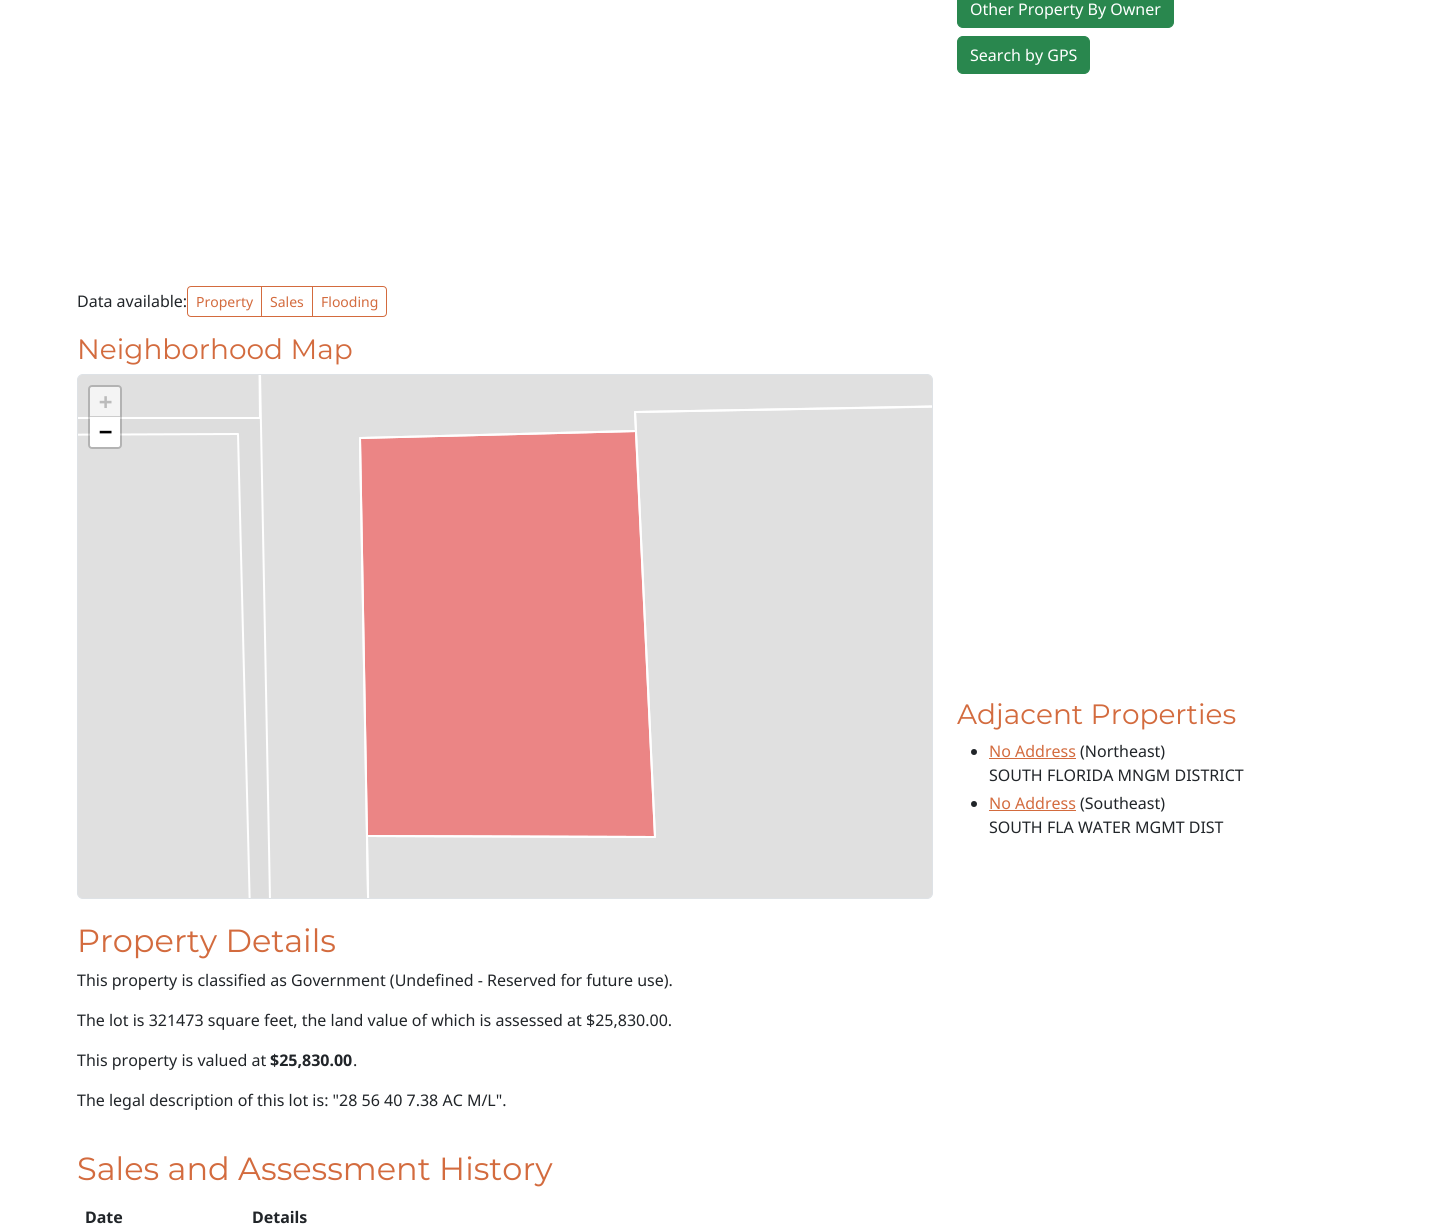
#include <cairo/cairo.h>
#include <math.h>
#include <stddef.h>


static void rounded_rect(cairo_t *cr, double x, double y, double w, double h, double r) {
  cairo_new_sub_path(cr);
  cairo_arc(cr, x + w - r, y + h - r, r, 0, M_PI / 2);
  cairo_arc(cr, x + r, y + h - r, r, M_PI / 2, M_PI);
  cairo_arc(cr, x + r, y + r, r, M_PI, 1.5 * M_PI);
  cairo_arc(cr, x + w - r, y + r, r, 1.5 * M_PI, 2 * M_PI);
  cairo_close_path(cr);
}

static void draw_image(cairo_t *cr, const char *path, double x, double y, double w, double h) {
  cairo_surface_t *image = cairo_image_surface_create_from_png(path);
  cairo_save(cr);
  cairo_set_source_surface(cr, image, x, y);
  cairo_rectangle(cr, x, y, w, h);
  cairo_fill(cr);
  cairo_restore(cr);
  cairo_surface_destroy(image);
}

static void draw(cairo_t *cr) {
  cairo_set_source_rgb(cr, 1, 1, 1);
  cairo_paint(cr);
  cairo_new_path(cr);
  cairo_move_to(cr, 191, 286.5);
  cairo_line_to(cr, 261.5, 286.5);
  cairo_line_to(cr, 261.5, 316.5);
  cairo_line_to(cr, 191, 316.5);
  cairo_curve_to(cr, 189, 316.5, 187.5, 315, 187.5, 313);
  cairo_line_to(cr, 187.5, 290);
  cairo_curve_to(cr, 187.5, 288, 189, 286.5, 191, 286.5);
  cairo_close_path(cr);
  cairo_set_source_rgb(cr, 211 / 255.0, 107 / 255.0, 62 / 255.0);
  cairo_set_line_width(cr, 1);
  cairo_stroke(cr);
  cairo_rectangle(cr, 261.5, 286.5, 51, 30);
  cairo_stroke(cr);
  cairo_new_path(cr);
  cairo_move_to(cr, 312.5, 286.5);
  cairo_line_to(cr, 383, 286.5);
  cairo_curve_to(cr, 385, 286.5, 386.5, 288, 386.5, 290);
  cairo_line_to(cr, 386.5, 313);
  cairo_curve_to(cr, 386.5, 315, 385, 316.5, 383, 316.5);
  cairo_line_to(cr, 312.5, 316.5);
  cairo_close_path(cr);
  cairo_stroke(cr);
  cairo_set_source_rgb(cr, 221 / 255.0, 221 / 255.0, 221 / 255.0);
  rounded_rect(cr, 77.5, 374.5, 855, 524, 5.5);
  cairo_fill_preserve(cr);
  cairo_set_source_rgb(cr, 222 / 255.0, 226 / 255.0, 230 / 255.0);
  cairo_stroke(cr);
  draw_image(cr, "images/1.png", 78, 375, 854, 523);
  rounded_rect(cr, 89, 386, 32, 62, 3);
  cairo_set_source_rgba(cr, 0, 0, 0, 0.2);
  cairo_set_line_width(cr, 2);
  cairo_stroke(cr);
  cairo_set_source_rgb(cr, 244 / 255.0, 244 / 255.0, 244 / 255.0);
  cairo_new_path(cr);
  cairo_move_to(cr, 92, 387);
  cairo_line_to(cr, 118, 387);
  cairo_curve_to(cr, 119, 387, 120, 388, 120, 389);
  cairo_line_to(cr, 120, 417);
  cairo_line_to(cr, 90, 417);
  cairo_line_to(cr, 90, 389);
  cairo_curve_to(cr, 90, 388, 91, 387, 92, 387);
  cairo_close_path(cr);
  cairo_fill(cr);
  cairo_set_source_rgb(cr, 204 / 255.0, 204 / 255.0, 204 / 255.0);
  cairo_rectangle(cr, 90, 416, 30, 1);
  cairo_fill(cr);
  cairo_set_source_rgb(cr, 1, 1, 1);
  cairo_new_path(cr);
  cairo_move_to(cr, 90, 417);
  cairo_line_to(cr, 120, 417);
  cairo_line_to(cr, 120, 445);
  cairo_curve_to(cr, 120, 446, 119, 447, 118, 447);
  cairo_line_to(cr, 92, 447);
  cairo_curve_to(cr, 91, 447, 90, 446, 90, 445);
  cairo_close_path(cr);
  cairo_fill(cr);
  cairo_set_source_rgb(cr, 41 / 255.0, 135 / 255.0, 78 / 255.0);
  rounded_rect(cr, 957.5, -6.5, 216, 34, 5.5);
  cairo_fill_preserve(cr);
  cairo_set_line_width(cr, 1);
  cairo_stroke(cr);
  rounded_rect(cr, 957.5, 36.5, 132, 37, 5.5);
  cairo_fill_preserve(cr);
  cairo_stroke(cr);
  cairo_set_source_rgb(cr, 33 / 255.0, 37 / 255.0, 41 / 255.0);
  cairo_arc(cr, 974, 752, 3, 0, 2 * M_PI);
  cairo_fill(cr);
  cairo_set_source_rgb(cr, 211 / 255.0, 107 / 255.0, 62 / 255.0);
  cairo_rectangle(cr, 989, 758, 87, 1);
  cairo_fill(cr);
  cairo_set_source_rgb(cr, 33 / 255.0, 37 / 255.0, 41 / 255.0);
  cairo_arc(cr, 974, 804, 3, 0, 2 * M_PI);
  cairo_fill(cr);
  cairo_set_source_rgb(cr, 211 / 255.0, 107 / 255.0, 62 / 255.0);
  cairo_rectangle(cr, 989, 810, 87, 1);
  cairo_fill(cr);
  cairo_select_font_face(cr, "Noto Sans", CAIRO_FONT_SLANT_NORMAL, CAIRO_FONT_WEIGHT_NORMAL);
  cairo_set_font_size(cr, 16);
  cairo_set_source_rgb(cr, 33 / 255.0, 37 / 255.0, 41 / 255.0);
  cairo_move_to(cr, 77, 307);
  cairo_show_text(cr, "Data available:");
  cairo_set_font_size(cr, 14);
  cairo_set_source_rgb(cr, 211 / 255.0, 107 / 255.0, 62 / 255.0);
  cairo_move_to(cr, 196, 307);
  cairo_show_text(cr, "Property");
  cairo_move_to(cr, 270, 307);
  cairo_show_text(cr, "Sales");
  cairo_move_to(cr, 321, 307);
  cairo_show_text(cr, "Flooding");
  cairo_select_font_face(cr, "Montserrat", CAIRO_FONT_SLANT_NORMAL, CAIRO_FONT_WEIGHT_NORMAL);
  cairo_set_font_size(cr, 28);
  cairo_move_to(cr, 77, 359);
  cairo_show_text(cr, "Neighborhood Map");
  cairo_select_font_face(cr, "DejaVu Sans Mono", CAIRO_FONT_SLANT_NORMAL, CAIRO_FONT_WEIGHT_BOLD);
  cairo_set_font_size(cr, 22);
  cairo_set_source_rgb(cr, 187 / 255.0, 187 / 255.0, 187 / 255.0);
  cairo_move_to(cr, 99, 409);
  cairo_show_text(cr, "+");
  cairo_set_source_rgb(cr, 0, 0, 0);
  cairo_move_to(cr, 99, 439);
  cairo_show_text(cr, "−");
  cairo_select_font_face(cr, "Montserrat", CAIRO_FONT_SLANT_NORMAL, CAIRO_FONT_WEIGHT_NORMAL);
  cairo_set_font_size(cr, 32);
  cairo_set_source_rgb(cr, 211 / 255.0, 107 / 255.0, 62 / 255.0);
  cairo_move_to(cr, 77, 952);
  cairo_show_text(cr, "Property Details");
  cairo_select_font_face(cr, "Noto Sans", CAIRO_FONT_SLANT_NORMAL, CAIRO_FONT_WEIGHT_NORMAL);
  cairo_set_font_size(cr, 16);
  cairo_set_source_rgb(cr, 33 / 255.0, 37 / 255.0, 41 / 255.0);
  cairo_move_to(cr, 77, 986);
  cairo_show_text(cr, "This property is classified as Government (Undefined - Reserved for future use).");
  cairo_move_to(cr, 77, 1026);
  cairo_show_text(cr, "The lot is 321473 square feet, the land value of which is assessed at $25,830.00.");
  cairo_move_to(cr, 77, 1066);
  cairo_show_text(cr, "This property is valued at");
  cairo_select_font_face(cr, "Noto Sans", CAIRO_FONT_SLANT_NORMAL, CAIRO_FONT_WEIGHT_BOLD);
  cairo_move_to(cr, 270, 1066);
  cairo_show_text(cr, "$25,830.00");
  cairo_select_font_face(cr, "Noto Sans", CAIRO_FONT_SLANT_NORMAL, CAIRO_FONT_WEIGHT_NORMAL);
  cairo_move_to(cr, 353, 1066);
  cairo_show_text(cr, ".");
  cairo_move_to(cr, 77, 1106);
  cairo_show_text(cr, "The legal description of this lot is: \"28 56 40 7.38 AC M/L\".");
  cairo_select_font_face(cr, "Montserrat", CAIRO_FONT_SLANT_NORMAL, CAIRO_FONT_WEIGHT_NORMAL);
  cairo_set_font_size(cr, 32);
  cairo_set_source_rgb(cr, 211 / 255.0, 107 / 255.0, 62 / 255.0);
  cairo_move_to(cr, 77, 1180);
  cairo_show_text(cr, "Sales and Assessment History");
  cairo_select_font_face(cr, "Noto Sans", CAIRO_FONT_SLANT_NORMAL, CAIRO_FONT_WEIGHT_BOLD);
  cairo_set_font_size(cr, 16);
  cairo_set_source_rgb(cr, 33 / 255.0, 37 / 255.0, 41 / 255.0);
  cairo_move_to(cr, 85, 1223);
  cairo_show_text(cr, "Date");
  cairo_move_to(cr, 252, 1223);
  cairo_show_text(cr, "Details");
  cairo_select_font_face(cr, "Noto Sans", CAIRO_FONT_SLANT_NORMAL, CAIRO_FONT_WEIGHT_NORMAL);
  cairo_set_source_rgb(cr, 1, 1, 1);
  cairo_move_to(cr, 970, 15);
  cairo_show_text(cr, "Other Property By Owner");
  cairo_move_to(cr, 970, 61);
  cairo_show_text(cr, "Search by GPS");
  cairo_select_font_face(cr, "Montserrat", CAIRO_FONT_SLANT_NORMAL, CAIRO_FONT_WEIGHT_NORMAL);
  cairo_set_font_size(cr, 28);
  cairo_set_source_rgb(cr, 211 / 255.0, 107 / 255.0, 62 / 255.0);
  cairo_move_to(cr, 957, 724);
  cairo_show_text(cr, "Adjacent Properties");
  cairo_select_font_face(cr, "Noto Sans", CAIRO_FONT_SLANT_NORMAL, CAIRO_FONT_WEIGHT_NORMAL);
  cairo_set_font_size(cr, 16);
  cairo_move_to(cr, 989, 757);
  cairo_show_text(cr, "No Address");
  cairo_set_source_rgb(cr, 33 / 255.0, 37 / 255.0, 41 / 255.0);
  cairo_move_to(cr, 1080, 757);
  cairo_show_text(cr, "(Northeast)");
  cairo_move_to(cr, 989, 781);
  cairo_show_text(cr, "SOUTH FLORIDA MNGM DISTRICT");
  cairo_set_source_rgb(cr, 211 / 255.0, 107 / 255.0, 62 / 255.0);
  cairo_move_to(cr, 989, 809);
  cairo_show_text(cr, "No Address");
  cairo_set_source_rgb(cr, 33 / 255.0, 37 / 255.0, 41 / 255.0);
  cairo_move_to(cr, 1080, 809);
  cairo_show_text(cr, "(Southeast)");
  cairo_move_to(cr, 989, 833);
  cairo_show_text(cr, "SOUTH FLA WATER MGMT DIST");
}

int main(void) {
  cairo_surface_t *surface = cairo_image_surface_create(CAIRO_FORMAT_RGB24, 1450, 1225);
  cairo_t *cr = cairo_create(surface);
  cairo_font_options_t *options = cairo_font_options_create();
  cairo_font_options_set_hint_metrics(options, CAIRO_HINT_METRICS_OFF);
  cairo_font_options_set_hint_style(options, CAIRO_HINT_STYLE_NONE);
  cairo_set_font_options(cr, options);
  cairo_set_miter_limit(cr, 4);
  draw(cr);
  cairo_surface_write_to_png(surface, "out.png");
  cairo_font_options_destroy(options);
  cairo_destroy(cr);
  cairo_surface_destroy(surface);
  return 0;
}
